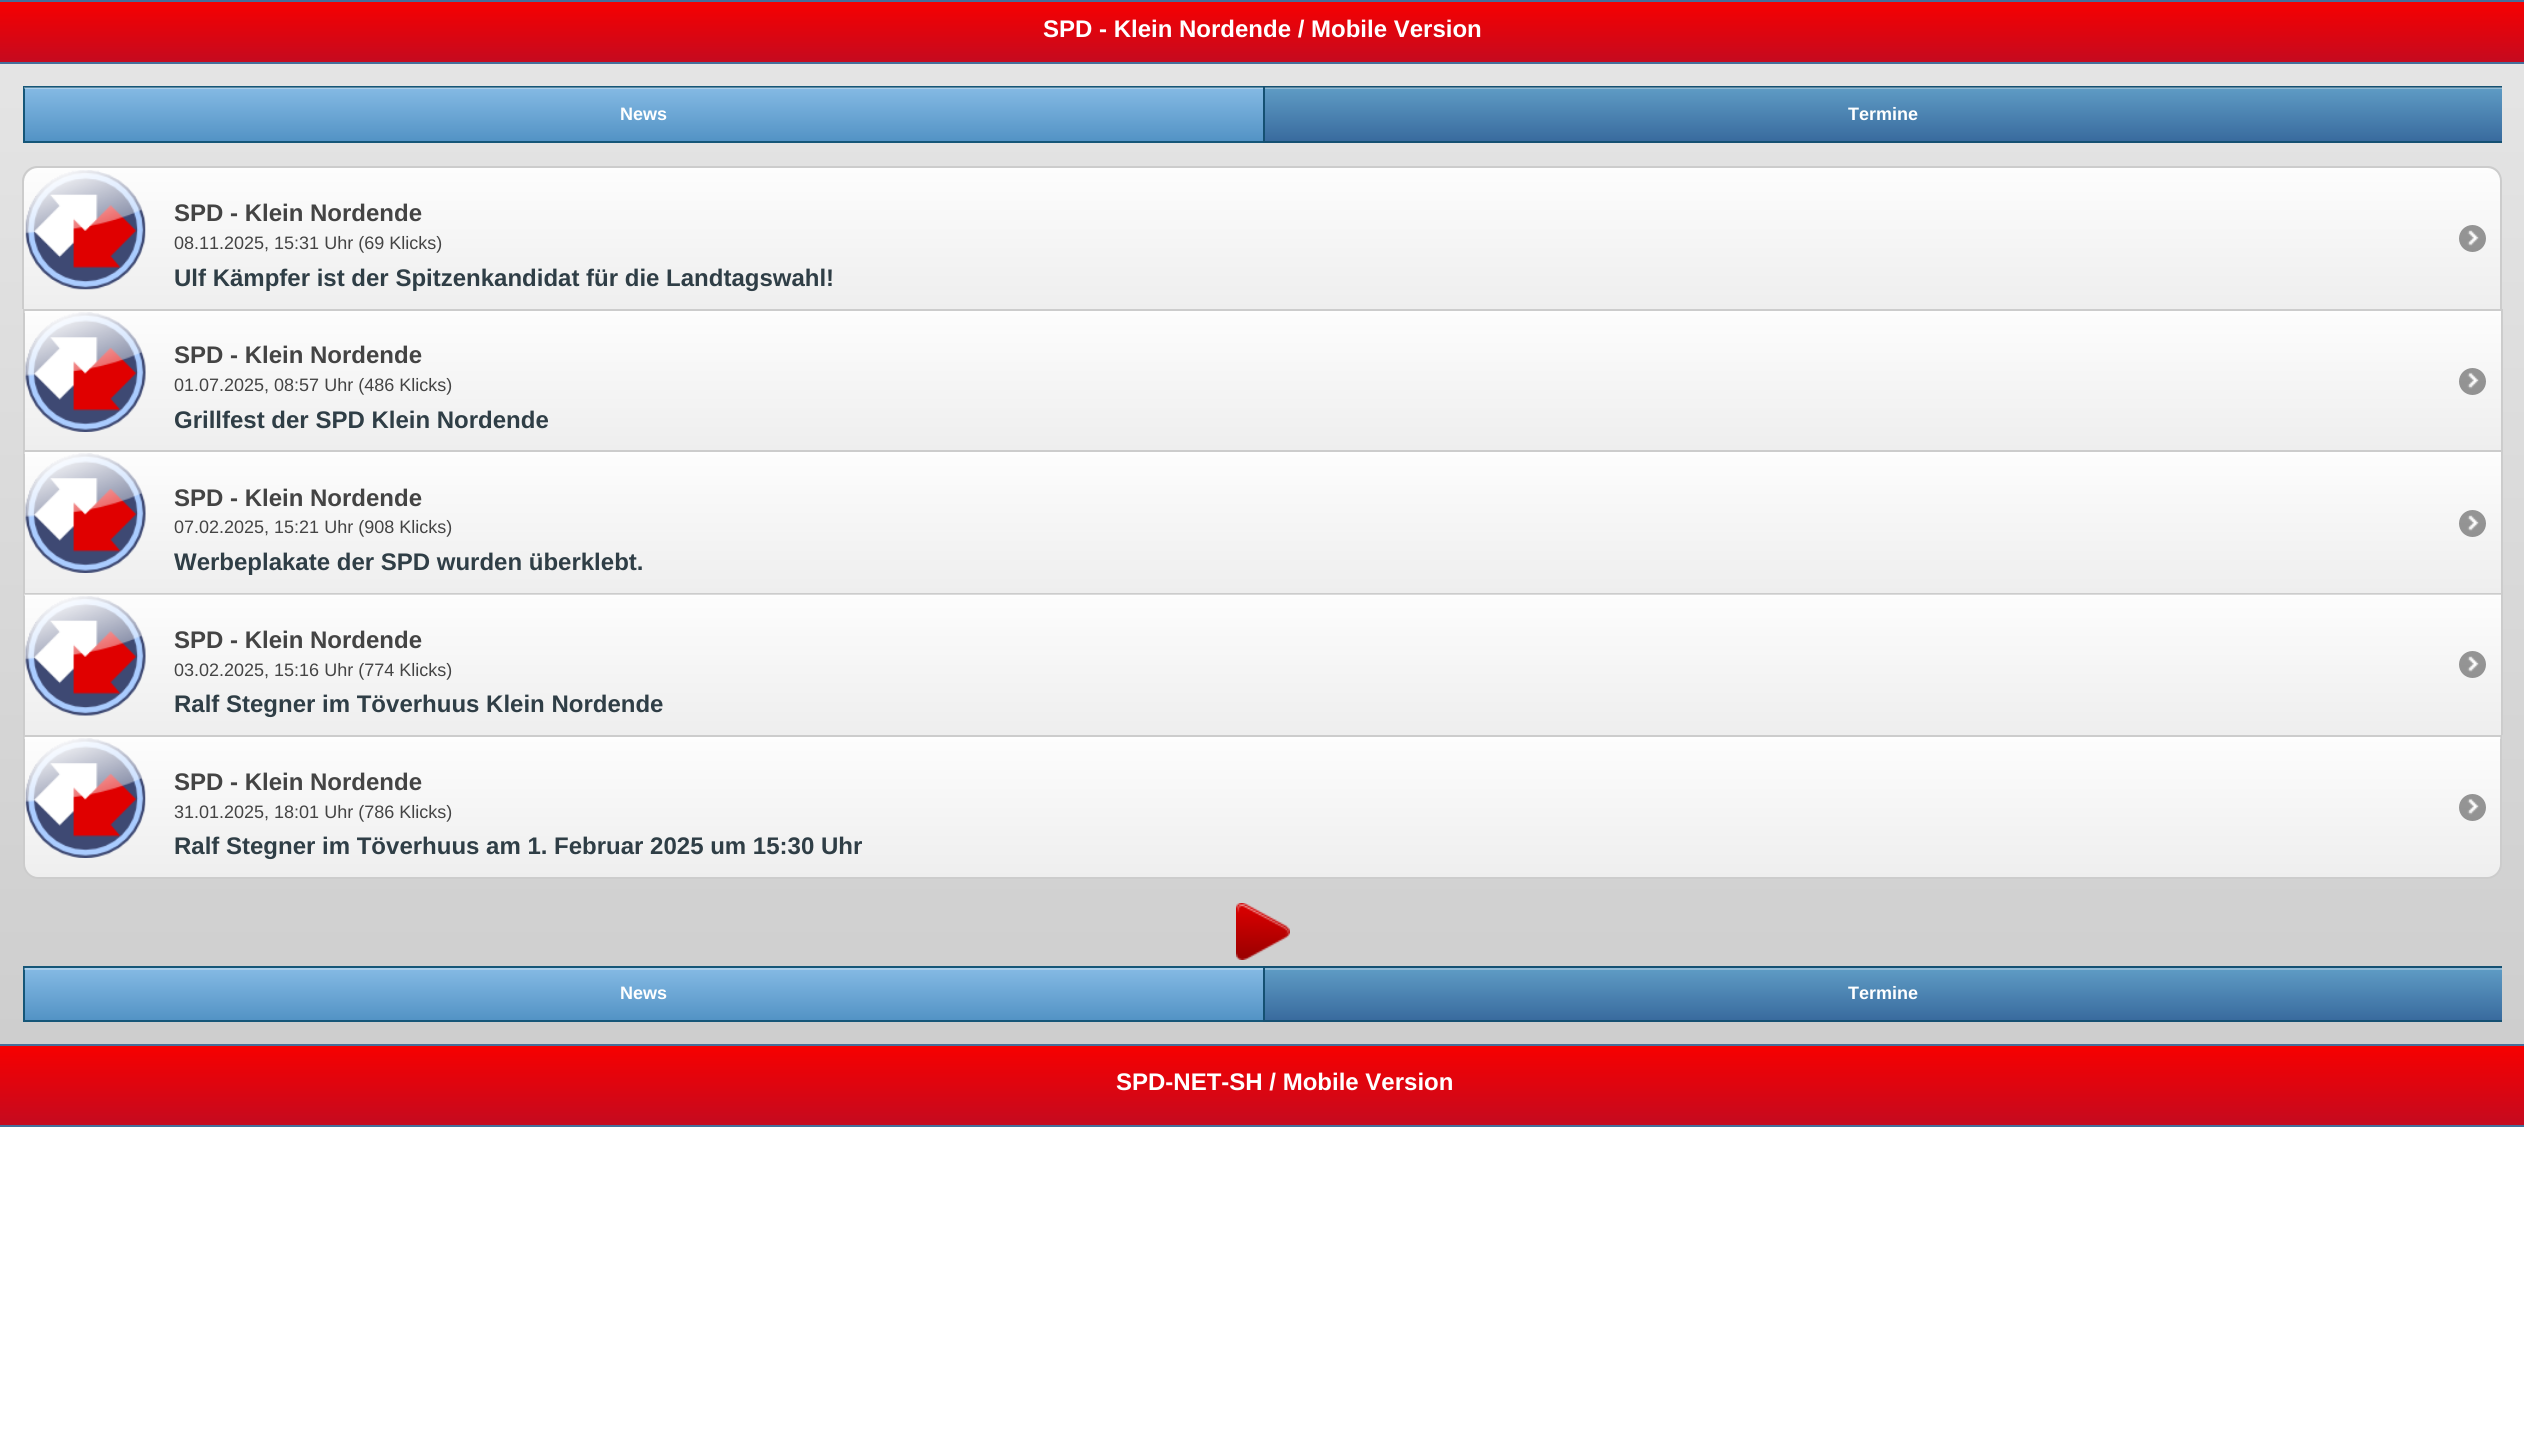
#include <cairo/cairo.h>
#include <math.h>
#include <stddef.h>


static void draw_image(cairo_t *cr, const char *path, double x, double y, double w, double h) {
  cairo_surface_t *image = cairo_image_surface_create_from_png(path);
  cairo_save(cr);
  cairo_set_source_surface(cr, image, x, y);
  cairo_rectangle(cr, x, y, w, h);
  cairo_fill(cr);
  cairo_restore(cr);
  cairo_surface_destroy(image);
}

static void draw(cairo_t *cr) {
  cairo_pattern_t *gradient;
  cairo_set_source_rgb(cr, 1, 1, 1);
  cairo_paint(cr);
  gradient = cairo_pattern_create_linear(0, 0, 0, 1127);
  cairo_pattern_add_color_stop_rgba(gradient, 0, 230 / 255.0, 230 / 255.0, 230 / 255.0, 1);
  cairo_pattern_add_color_stop_rgba(gradient, 1, 204 / 255.0, 204 / 255.0, 204 / 255.0, 1);
  cairo_set_source(cr, gradient);
  cairo_pattern_destroy(gradient);
  cairo_rectangle(cr, 0, 64, 2524, 980);
  cairo_fill(cr);
  gradient = cairo_pattern_create_linear(0, 1.5, 0, 62);
  cairo_pattern_add_color_stop_rgba(gradient, 0, 247 / 255.0, 0, 0, 1);
  cairo_pattern_add_color_stop_rgba(gradient, 1, 197 / 255.0, 10 / 255.0, 31 / 255.0, 1);
  cairo_set_source(cr, gradient);
  cairo_pattern_destroy(gradient);
  cairo_rectangle(cr, 0, 2, 2524, 60);
  cairo_fill(cr);
  cairo_set_source_rgb(cr, 69 / 255.0, 111 / 255.0, 154 / 255.0);
  cairo_rectangle(cr, 0, 0, 2524, 2);
  cairo_fill(cr);
  cairo_rectangle(cr, 0, 62, 2524, 2);
  cairo_fill(cr);
  gradient = cairo_pattern_create_linear(24, 87, 24, 141);
  cairo_pattern_add_color_stop_rgba(gradient, 0, 133 / 255.0, 186 / 255.0, 228 / 255.0, 1);
  cairo_pattern_add_color_stop_rgba(gradient, 1, 83 / 255.0, 147 / 255.0, 197 / 255.0, 1);
  cairo_set_source(cr, gradient);
  cairo_pattern_destroy(gradient);
  cairo_rectangle(cr, 25, 89, 1238, 52);
  cairo_fill(cr);
  gradient = cairo_pattern_create_linear(24, 87, 24, 141);
  cairo_pattern_add_color_stop_rgba(gradient, 0, 170 / 255.0, 207 / 255.0, 236 / 255.0, 1);
  cairo_pattern_add_color_stop_rgba(gradient, 1, 135 / 255.0, 179 / 255.0, 214 / 255.0, 1);
  cairo_set_source(cr, gradient);
  cairo_pattern_destroy(gradient);
  cairo_rectangle(cr, 24, 88, 1239, 1);
  cairo_fill(cr);
  cairo_set_source_rgb(cr, 21 / 255.0, 86 / 255.0, 120 / 255.0);
  cairo_rectangle(cr, 23, 86, 1240, 1);
  cairo_fill(cr);
  cairo_set_source_rgb(cr, 91 / 255.0, 137 / 255.0, 161 / 255.0);
  cairo_rectangle(cr, 24, 87, 1239, 1);
  cairo_fill(cr);
  cairo_set_source_rgb(cr, 21 / 255.0, 86 / 255.0, 120 / 255.0);
  cairo_rectangle(cr, 23, 141, 1240, 2);
  cairo_fill(cr);
  cairo_rectangle(cr, 23, 86, 2, 57);
  cairo_fill(cr);
  cairo_set_source_rgb(cr, 91 / 255.0, 137 / 255.0, 161 / 255.0);
  cairo_rectangle(cr, 24, 87, 1, 2);
  cairo_fill(cr);
  gradient = cairo_pattern_create_linear(1265, 87, 1265, 141);
  cairo_pattern_add_color_stop_rgba(gradient, 0, 95 / 255.0, 156 / 255.0, 197 / 255.0, 1);
  cairo_pattern_add_color_stop_rgba(gradient, 1, 57 / 255.0, 107 / 255.0, 158 / 255.0, 1);
  cairo_set_source(cr, gradient);
  cairo_pattern_destroy(gradient);
  cairo_rectangle(cr, 1265, 89, 1237, 52);
  cairo_fill(cr);
  gradient = cairo_pattern_create_linear(1265, 87, 1265, 141);
  cairo_pattern_add_color_stop_rgba(gradient, 0, 143 / 255.0, 186 / 255.0, 214 / 255.0, 1);
  cairo_pattern_add_color_stop_rgba(gradient, 1, 116 / 255.0, 151 / 255.0, 187 / 255.0, 1);
  cairo_set_source(cr, gradient);
  cairo_pattern_destroy(gradient);
  cairo_rectangle(cr, 1265, 88, 1237, 1);
  cairo_fill(cr);
  cairo_set_source_rgb(cr, 20 / 255.0, 80 / 255.0, 114 / 255.0);
  cairo_rectangle(cr, 1263, 86, 1239, 1);
  cairo_fill(cr);
  cairo_set_source_rgb(cr, 91 / 255.0, 133 / 255.0, 156 / 255.0);
  cairo_rectangle(cr, 1265, 87, 1237, 1);
  cairo_fill(cr);
  cairo_set_source_rgb(cr, 20 / 255.0, 80 / 255.0, 114 / 255.0);
  cairo_rectangle(cr, 1263, 141, 1239, 2);
  cairo_fill(cr);
  cairo_rectangle(cr, 1263, 86, 2, 57);
  cairo_fill(cr);
  gradient = cairo_pattern_create_linear(24, 168, 24, 309);
  cairo_pattern_add_color_stop_rgba(gradient, 0, 253 / 255.0, 253 / 255.0, 253 / 255.0, 1);
  cairo_pattern_add_color_stop_rgba(gradient, 1, 238 / 255.0, 238 / 255.0, 238 / 255.0, 1);
  cairo_set_source(cr, gradient);
  cairo_pattern_destroy(gradient);
  cairo_new_path(cr);
  cairo_move_to(cr, 38, 168);
  cairo_line_to(cr, 2487, 168);
  cairo_curve_to(cr, 2494.5, 168, 2501, 174.5, 2501, 182);
  cairo_line_to(cr, 2501, 309);
  cairo_line_to(cr, 24, 309);
  cairo_line_to(cr, 24, 182);
  cairo_curve_to(cr, 24, 174.5, 30.5, 168, 38, 168);
  cairo_close_path(cr);
  cairo_fill(cr);
  cairo_set_source_rgb(cr, 204 / 255.0, 204 / 255.0, 204 / 255.0);
  cairo_set_fill_rule(cr, CAIRO_FILL_RULE_EVEN_ODD);
  cairo_new_path(cr);
  cairo_move_to(cr, 37, 166);
  cairo_line_to(cr, 2488, 166);
  cairo_curve_to(cr, 2496, 166, 2502, 173, 2502, 181);
  cairo_line_to(cr, 2502, 309);
  cairo_line_to(cr, 22, 309);
  cairo_line_to(cr, 22, 181);
  cairo_curve_to(cr, 22, 173, 29, 166, 37, 166);
  cairo_close_path(cr);
  cairo_move_to(cr, 37, 168);
  cairo_line_to(cr, 2488, 168);
  cairo_curve_to(cr, 2495, 168, 2500, 174, 2500, 181);
  cairo_line_to(cr, 2500, 309);
  cairo_line_to(cr, 24, 309);
  cairo_line_to(cr, 24, 181);
  cairo_curve_to(cr, 24, 174, 30, 168, 37, 168);
  cairo_close_path(cr);
  cairo_fill(cr);
  cairo_save(cr);
  cairo_set_fill_rule(cr, CAIRO_FILL_RULE_WINDING);
  cairo_new_path(cr);
  cairo_move_to(cr, 38, 168);
  cairo_line_to(cr, 2487, 168);
  cairo_curve_to(cr, 2494.5, 168, 2501, 174.5, 2501, 182);
  cairo_line_to(cr, 2501, 309);
  cairo_line_to(cr, 24, 309);
  cairo_line_to(cr, 24, 182);
  cairo_curve_to(cr, 24, 174.5, 30.5, 168, 38, 168);
  cairo_close_path(cr);
  cairo_clip(cr);
  cairo_set_source_rgba(cr, 1, 1, 1, 0.3);
  cairo_rectangle(cr, 24, 168, 2477, 2);
  cairo_fill(cr);
  cairo_restore(cr);
  draw_image(cr, "images/1.png", 25, 170, 121, 120);
  cairo_set_source_rgba(cr, 0, 0, 0, 0.4);
  cairo_arc(cr, 2472.5, 238.5, 13.5, 0, 2 * M_PI);
  cairo_fill(cr);
  draw_image(cr, "images/2.png", 2467, 230, 12, 16);
  gradient = cairo_pattern_create_linear(24, 311, 24, 450);
  cairo_pattern_add_color_stop_rgba(gradient, 0, 253 / 255.0, 253 / 255.0, 253 / 255.0, 1);
  cairo_pattern_add_color_stop_rgba(gradient, 1, 238 / 255.0, 238 / 255.0, 238 / 255.0, 1);
  cairo_set_source(cr, gradient);
  cairo_pattern_destroy(gradient);
  cairo_rectangle(cr, 25, 313, 2476, 137);
  cairo_fill(cr);
  gradient = cairo_pattern_create_linear(24, 311, 24, 450);
  cairo_pattern_add_color_stop_rgba(gradient, 0, 254 / 255.0, 254 / 255.0, 254 / 255.0, 1);
  cairo_pattern_add_color_stop_rgba(gradient, 1, 243 / 255.0, 243 / 255.0, 243 / 255.0, 1);
  cairo_set_source(cr, gradient);
  cairo_pattern_destroy(gradient);
  cairo_rectangle(cr, 24, 311, 2477, 2);
  cairo_fill(cr);
  cairo_set_source_rgb(cr, 204 / 255.0, 204 / 255.0, 204 / 255.0);
  cairo_rectangle(cr, 23, 309, 2479, 2);
  cairo_fill(cr);
  cairo_rectangle(cr, 2501, 309, 2, 141);
  cairo_fill(cr);
  cairo_rectangle(cr, 23, 309, 2, 141);
  cairo_fill(cr);
  cairo_set_source_rgb(cr, 219 / 255.0, 219 / 255.0, 219 / 255.0);
  cairo_rectangle(cr, 24, 311, 1, 2);
  cairo_fill(cr);
  draw_image(cr, "images/3.png", 25, 312, 121, 120);
  cairo_set_source_rgba(cr, 0, 0, 0, 0.4);
  cairo_arc(cr, 2472.5, 381.5, 13.5, 0, 2 * M_PI);
  cairo_fill(cr);
  draw_image(cr, "images/4.png", 2467, 372, 12, 17);
  gradient = cairo_pattern_create_linear(24, 452, 24, 593);
  cairo_pattern_add_color_stop_rgba(gradient, 0, 253 / 255.0, 253 / 255.0, 253 / 255.0, 1);
  cairo_pattern_add_color_stop_rgba(gradient, 1, 238 / 255.0, 238 / 255.0, 238 / 255.0, 1);
  cairo_set_source(cr, gradient);
  cairo_pattern_destroy(gradient);
  cairo_rectangle(cr, 25, 454, 2476, 139);
  cairo_fill(cr);
  gradient = cairo_pattern_create_linear(24, 452, 24, 593);
  cairo_pattern_add_color_stop_rgba(gradient, 0, 254 / 255.0, 254 / 255.0, 254 / 255.0, 1);
  cairo_pattern_add_color_stop_rgba(gradient, 1, 243 / 255.0, 243 / 255.0, 243 / 255.0, 1);
  cairo_set_source(cr, gradient);
  cairo_pattern_destroy(gradient);
  cairo_rectangle(cr, 24, 452, 2477, 2);
  cairo_fill(cr);
  cairo_set_source_rgb(cr, 204 / 255.0, 204 / 255.0, 204 / 255.0);
  cairo_rectangle(cr, 23, 450, 2479, 2);
  cairo_fill(cr);
  cairo_rectangle(cr, 2501, 450, 2, 143);
  cairo_fill(cr);
  cairo_rectangle(cr, 23, 450, 2, 143);
  cairo_fill(cr);
  cairo_set_source_rgb(cr, 219 / 255.0, 219 / 255.0, 219 / 255.0);
  cairo_rectangle(cr, 24, 452, 1, 2);
  cairo_fill(cr);
  draw_image(cr, "images/5.png", 25, 453, 121, 120);
  cairo_set_source_rgba(cr, 0, 0, 0, 0.4);
  cairo_arc(cr, 2472.5, 523.5, 13.5, 0, 2 * M_PI);
  cairo_fill(cr);
  draw_image(cr, "images/6.png", 2467, 515, 12, 16);
  gradient = cairo_pattern_create_linear(24, 594, 24, 735);
  cairo_pattern_add_color_stop_rgba(gradient, 0, 253 / 255.0, 253 / 255.0, 253 / 255.0, 1);
  cairo_pattern_add_color_stop_rgba(gradient, 1, 238 / 255.0, 238 / 255.0, 238 / 255.0, 1);
  cairo_set_source(cr, gradient);
  cairo_pattern_destroy(gradient);
  cairo_rectangle(cr, 25, 596, 2476, 139);
  cairo_fill(cr);
  gradient = cairo_pattern_create_linear(24, 594, 24, 735);
  cairo_pattern_add_color_stop_rgba(gradient, 0, 254 / 255.0, 254 / 255.0, 254 / 255.0, 1);
  cairo_pattern_add_color_stop_rgba(gradient, 1, 243 / 255.0, 243 / 255.0, 243 / 255.0, 1);
  cairo_set_source(cr, gradient);
  cairo_pattern_destroy(gradient);
  cairo_rectangle(cr, 24, 595, 2477, 1);
  cairo_fill(cr);
  cairo_set_source_rgb(cr, 204 / 255.0, 204 / 255.0, 204 / 255.0);
  cairo_rectangle(cr, 23, 593, 2479, 1);
  cairo_fill(cr);
  cairo_set_source_rgb(cr, 219 / 255.0, 219 / 255.0, 219 / 255.0);
  cairo_rectangle(cr, 24, 594, 2477, 1);
  cairo_fill(cr);
  cairo_set_source_rgb(cr, 204 / 255.0, 204 / 255.0, 204 / 255.0);
  cairo_rectangle(cr, 2501, 593, 2, 142);
  cairo_fill(cr);
  cairo_rectangle(cr, 23, 593, 2, 142);
  cairo_fill(cr);
  cairo_set_source_rgb(cr, 219 / 255.0, 219 / 255.0, 219 / 255.0);
  cairo_rectangle(cr, 24, 594, 1, 2);
  cairo_fill(cr);
  draw_image(cr, "images/7.png", 25, 596, 121, 120);
  cairo_set_source_rgba(cr, 0, 0, 0, 0.4);
  cairo_arc(cr, 2472.5, 664.5, 13.5, 0, 2 * M_PI);
  cairo_fill(cr);
  draw_image(cr, "images/2.png", 2467, 656, 12, 16);
  gradient = cairo_pattern_create_linear(24, 737, 24, 878);
  cairo_pattern_add_color_stop_rgba(gradient, 0, 253 / 255.0, 253 / 255.0, 253 / 255.0, 1);
  cairo_pattern_add_color_stop_rgba(gradient, 1, 238 / 255.0, 238 / 255.0, 238 / 255.0, 1);
  cairo_set_source(cr, gradient);
  cairo_pattern_destroy(gradient);
  cairo_new_path(cr);
  cairo_move_to(cr, 24, 737);
  cairo_line_to(cr, 2501, 737);
  cairo_line_to(cr, 2501, 864);
  cairo_curve_to(cr, 2501, 871.5, 2494.5, 878, 2487, 878);
  cairo_line_to(cr, 38, 878);
  cairo_curve_to(cr, 30.5, 878, 24, 871.5, 24, 864);
  cairo_close_path(cr);
  cairo_fill(cr);
  cairo_new_path(cr);
  cairo_move_to(cr, 24, 736);
  cairo_line_to(cr, 2501, 736);
  cairo_line_to(cr, 2501, 864);
  cairo_curve_to(cr, 2501, 871.5, 2494.5, 878, 2487, 878);
  cairo_line_to(cr, 38, 878);
  cairo_curve_to(cr, 30.5, 878, 24, 871.5, 24, 864);
  cairo_close_path(cr);
  cairo_set_source_rgb(cr, 204 / 255.0, 204 / 255.0, 204 / 255.0);
  cairo_stroke(cr);
  cairo_set_source_rgba(cr, 1, 1, 1, 0.3);
  cairo_rectangle(cr, 24, 737, 2477, 2);
  cairo_fill(cr);
  draw_image(cr, "images/8.png", 25, 738, 121, 120);
  cairo_set_source_rgba(cr, 0, 0, 0, 0.4);
  cairo_arc(cr, 2472.5, 807.5, 13.5, 0, 2 * M_PI);
  cairo_fill(cr);
  draw_image(cr, "images/9.png", 2467, 798, 12, 17);
  draw_image(cr, "images/10.png", 1236, 903, 54, 57);
  gradient = cairo_pattern_create_linear(24, 968, 24, 1020);
  cairo_pattern_add_color_stop_rgba(gradient, 0, 133 / 255.0, 186 / 255.0, 228 / 255.0, 1);
  cairo_pattern_add_color_stop_rgba(gradient, 1, 83 / 255.0, 147 / 255.0, 197 / 255.0, 1);
  cairo_set_source(cr, gradient);
  cairo_pattern_destroy(gradient);
  cairo_rectangle(cr, 25, 970, 1238, 50);
  cairo_fill(cr);
  gradient = cairo_pattern_create_linear(24, 968, 24, 1020);
  cairo_pattern_add_color_stop_rgba(gradient, 0, 170 / 255.0, 207 / 255.0, 236 / 255.0, 1);
  cairo_pattern_add_color_stop_rgba(gradient, 1, 135 / 255.0, 179 / 255.0, 214 / 255.0, 1);
  cairo_set_source(cr, gradient);
  cairo_pattern_destroy(gradient);
  cairo_rectangle(cr, 24, 968, 1239, 2);
  cairo_fill(cr);
  cairo_set_source_rgb(cr, 21 / 255.0, 86 / 255.0, 120 / 255.0);
  cairo_rectangle(cr, 23, 966, 1240, 2);
  cairo_fill(cr);
  cairo_rectangle(cr, 23, 1020, 1240, 2);
  cairo_fill(cr);
  cairo_rectangle(cr, 23, 966, 2, 56);
  cairo_fill(cr);
  cairo_set_source_rgb(cr, 91 / 255.0, 137 / 255.0, 161 / 255.0);
  cairo_rectangle(cr, 24, 968, 1, 2);
  cairo_fill(cr);
  gradient = cairo_pattern_create_linear(1265, 968, 1265, 1020);
  cairo_pattern_add_color_stop_rgba(gradient, 0, 95 / 255.0, 156 / 255.0, 197 / 255.0, 1);
  cairo_pattern_add_color_stop_rgba(gradient, 1, 57 / 255.0, 107 / 255.0, 158 / 255.0, 1);
  cairo_set_source(cr, gradient);
  cairo_pattern_destroy(gradient);
  cairo_rectangle(cr, 1265, 970, 1237, 50);
  cairo_fill(cr);
  cairo_set_source_rgb(cr, 20 / 255.0, 80 / 255.0, 114 / 255.0);
  cairo_rectangle(cr, 1263, 966, 1239, 2);
  cairo_fill(cr);
  cairo_rectangle(cr, 1263, 1020, 1239, 2);
  cairo_fill(cr);
  cairo_rectangle(cr, 1263, 966, 2, 56);
  cairo_fill(cr);
  cairo_set_source_rgb(cr, 143 / 255.0, 185 / 255.0, 214 / 255.0);
  cairo_rectangle(cr, 1265, 968, 1237, 2);
  cairo_fill(cr);
  gradient = cairo_pattern_create_linear(0, 1046, 0, 1125);
  cairo_pattern_add_color_stop_rgba(gradient, 0, 247 / 255.0, 0, 0, 1);
  cairo_pattern_add_color_stop_rgba(gradient, 1, 197 / 255.0, 10 / 255.0, 31 / 255.0, 1);
  cairo_set_source(cr, gradient);
  cairo_pattern_destroy(gradient);
  cairo_rectangle(cr, 0, 1046, 2524, 79);
  cairo_fill(cr);
  cairo_set_source_rgb(cr, 69 / 255.0, 111 / 255.0, 154 / 255.0);
  cairo_rectangle(cr, 0, 1044, 2524, 2);
  cairo_fill(cr);
  cairo_rectangle(cr, 0, 1125, 2524, 2);
  cairo_fill(cr);
  cairo_select_font_face(cr, "Liberation Sans", CAIRO_FONT_SLANT_NORMAL, CAIRO_FONT_WEIGHT_BOLD);
  cairo_set_font_size(cr, 24);
  cairo_set_source_rgb(cr, 1, 1, 1);
  cairo_move_to(cr, 1043, 37);
  cairo_show_text(cr, "SPD - Klein Nordende / Mobile Version");
  cairo_set_font_size(cr, 18);
  cairo_move_to(cr, 620, 120);
  cairo_show_text(cr, "News");
  cairo_move_to(cr, 1848, 120);
  cairo_show_text(cr, "Termine");
  cairo_set_font_size(cr, 24);
  cairo_set_source_rgb(cr, 68 / 255.0, 68 / 255.0, 68 / 255.0);
  cairo_move_to(cr, 174, 221);
  cairo_show_text(cr, "SPD - Klein Nordende");
  cairo_select_font_face(cr, "Liberation Sans", CAIRO_FONT_SLANT_NORMAL, CAIRO_FONT_WEIGHT_NORMAL);
  cairo_set_font_size(cr, 18);
  cairo_move_to(cr, 174, 249);
  cairo_show_text(cr, "08.11.2025, 15:31 Uhr (69 Klicks)");
  cairo_select_font_face(cr, "Liberation Sans", CAIRO_FONT_SLANT_NORMAL, CAIRO_FONT_WEIGHT_BOLD);
  cairo_set_font_size(cr, 24);
  cairo_set_source_rgb(cr, 47 / 255.0, 62 / 255.0, 70 / 255.0);
  cairo_move_to(cr, 174, 286);
  cairo_show_text(cr, "Ulf Kämpfer ist der Spitzenkandidat für die Landtagswahl!");
  cairo_set_source_rgb(cr, 68 / 255.0, 68 / 255.0, 68 / 255.0);
  cairo_move_to(cr, 174, 363);
  cairo_show_text(cr, "SPD - Klein Nordende");
  cairo_select_font_face(cr, "Liberation Sans", CAIRO_FONT_SLANT_NORMAL, CAIRO_FONT_WEIGHT_NORMAL);
  cairo_set_font_size(cr, 18);
  cairo_move_to(cr, 174, 391);
  cairo_show_text(cr, "01.07.2025, 08:57 Uhr (486 Klicks)");
  cairo_select_font_face(cr, "Liberation Sans", CAIRO_FONT_SLANT_NORMAL, CAIRO_FONT_WEIGHT_BOLD);
  cairo_set_font_size(cr, 24);
  cairo_set_source_rgb(cr, 47 / 255.0, 62 / 255.0, 70 / 255.0);
  cairo_move_to(cr, 174, 428);
  cairo_show_text(cr, "Grillfest der SPD Klein Nordende");
  cairo_set_source_rgb(cr, 68 / 255.0, 68 / 255.0, 68 / 255.0);
  cairo_move_to(cr, 174, 506);
  cairo_show_text(cr, "SPD - Klein Nordende");
  cairo_select_font_face(cr, "Liberation Sans", CAIRO_FONT_SLANT_NORMAL, CAIRO_FONT_WEIGHT_NORMAL);
  cairo_set_font_size(cr, 18);
  cairo_move_to(cr, 174, 533);
  cairo_show_text(cr, "07.02.2025, 15:21 Uhr (908 Klicks)");
  cairo_select_font_face(cr, "Liberation Sans", CAIRO_FONT_SLANT_NORMAL, CAIRO_FONT_WEIGHT_BOLD);
  cairo_set_font_size(cr, 24);
  cairo_set_source_rgb(cr, 47 / 255.0, 62 / 255.0, 70 / 255.0);
  cairo_move_to(cr, 174, 570);
  cairo_show_text(cr, "Werbeplakate der SPD wurden überklebt.");
  cairo_set_source_rgb(cr, 68 / 255.0, 68 / 255.0, 68 / 255.0);
  cairo_move_to(cr, 174, 648);
  cairo_show_text(cr, "SPD - Klein Nordende");
  cairo_select_font_face(cr, "Liberation Sans", CAIRO_FONT_SLANT_NORMAL, CAIRO_FONT_WEIGHT_NORMAL);
  cairo_set_font_size(cr, 18);
  cairo_move_to(cr, 174, 676);
  cairo_show_text(cr, "03.02.2025, 15:16 Uhr (774 Klicks)");
  cairo_select_font_face(cr, "Liberation Sans", CAIRO_FONT_SLANT_NORMAL, CAIRO_FONT_WEIGHT_BOLD);
  cairo_set_font_size(cr, 24);
  cairo_set_source_rgb(cr, 47 / 255.0, 62 / 255.0, 70 / 255.0);
  cairo_move_to(cr, 174, 712);
  cairo_show_text(cr, "Ralf Stegner im Töverhuus Klein Nordende");
  cairo_set_source_rgb(cr, 68 / 255.0, 68 / 255.0, 68 / 255.0);
  cairo_move_to(cr, 174, 790);
  cairo_show_text(cr, "SPD - Klein Nordende");
  cairo_select_font_face(cr, "Liberation Sans", CAIRO_FONT_SLANT_NORMAL, CAIRO_FONT_WEIGHT_NORMAL);
  cairo_set_font_size(cr, 18);
  cairo_move_to(cr, 174, 818);
  cairo_show_text(cr, "31.01.2025, 18:01 Uhr (786 Klicks)");
  cairo_select_font_face(cr, "Liberation Sans", CAIRO_FONT_SLANT_NORMAL, CAIRO_FONT_WEIGHT_BOLD);
  cairo_set_font_size(cr, 24);
  cairo_set_source_rgb(cr, 47 / 255.0, 62 / 255.0, 70 / 255.0);
  cairo_move_to(cr, 174, 854);
  cairo_show_text(cr, "Ralf Stegner im Töverhuus am 1. Februar 2025 um 15:30 Uhr");
  cairo_set_font_size(cr, 18);
  cairo_set_source_rgb(cr, 1, 1, 1);
  cairo_move_to(cr, 620, 999);
  cairo_show_text(cr, "News");
  cairo_move_to(cr, 1848, 999);
  cairo_show_text(cr, "Termine");
  cairo_set_font_size(cr, 24);
  cairo_move_to(cr, 1116, 1090);
  cairo_show_text(cr, "SPD-NET-SH / Mobile Version");
}

int main(void) {
  cairo_surface_t *surface = cairo_image_surface_create(CAIRO_FORMAT_RGB24, 2524, 1446);
  cairo_t *cr = cairo_create(surface);
  cairo_font_options_t *options = cairo_font_options_create();
  cairo_font_options_set_hint_metrics(options, CAIRO_HINT_METRICS_OFF);
  cairo_font_options_set_hint_style(options, CAIRO_HINT_STYLE_NONE);
  cairo_set_font_options(cr, options);
  cairo_set_miter_limit(cr, 4);
  draw(cr);
  cairo_surface_write_to_png(surface, "out.png");
  cairo_font_options_destroy(options);
  cairo_destroy(cr);
  cairo_surface_destroy(surface);
  return 0;
}
